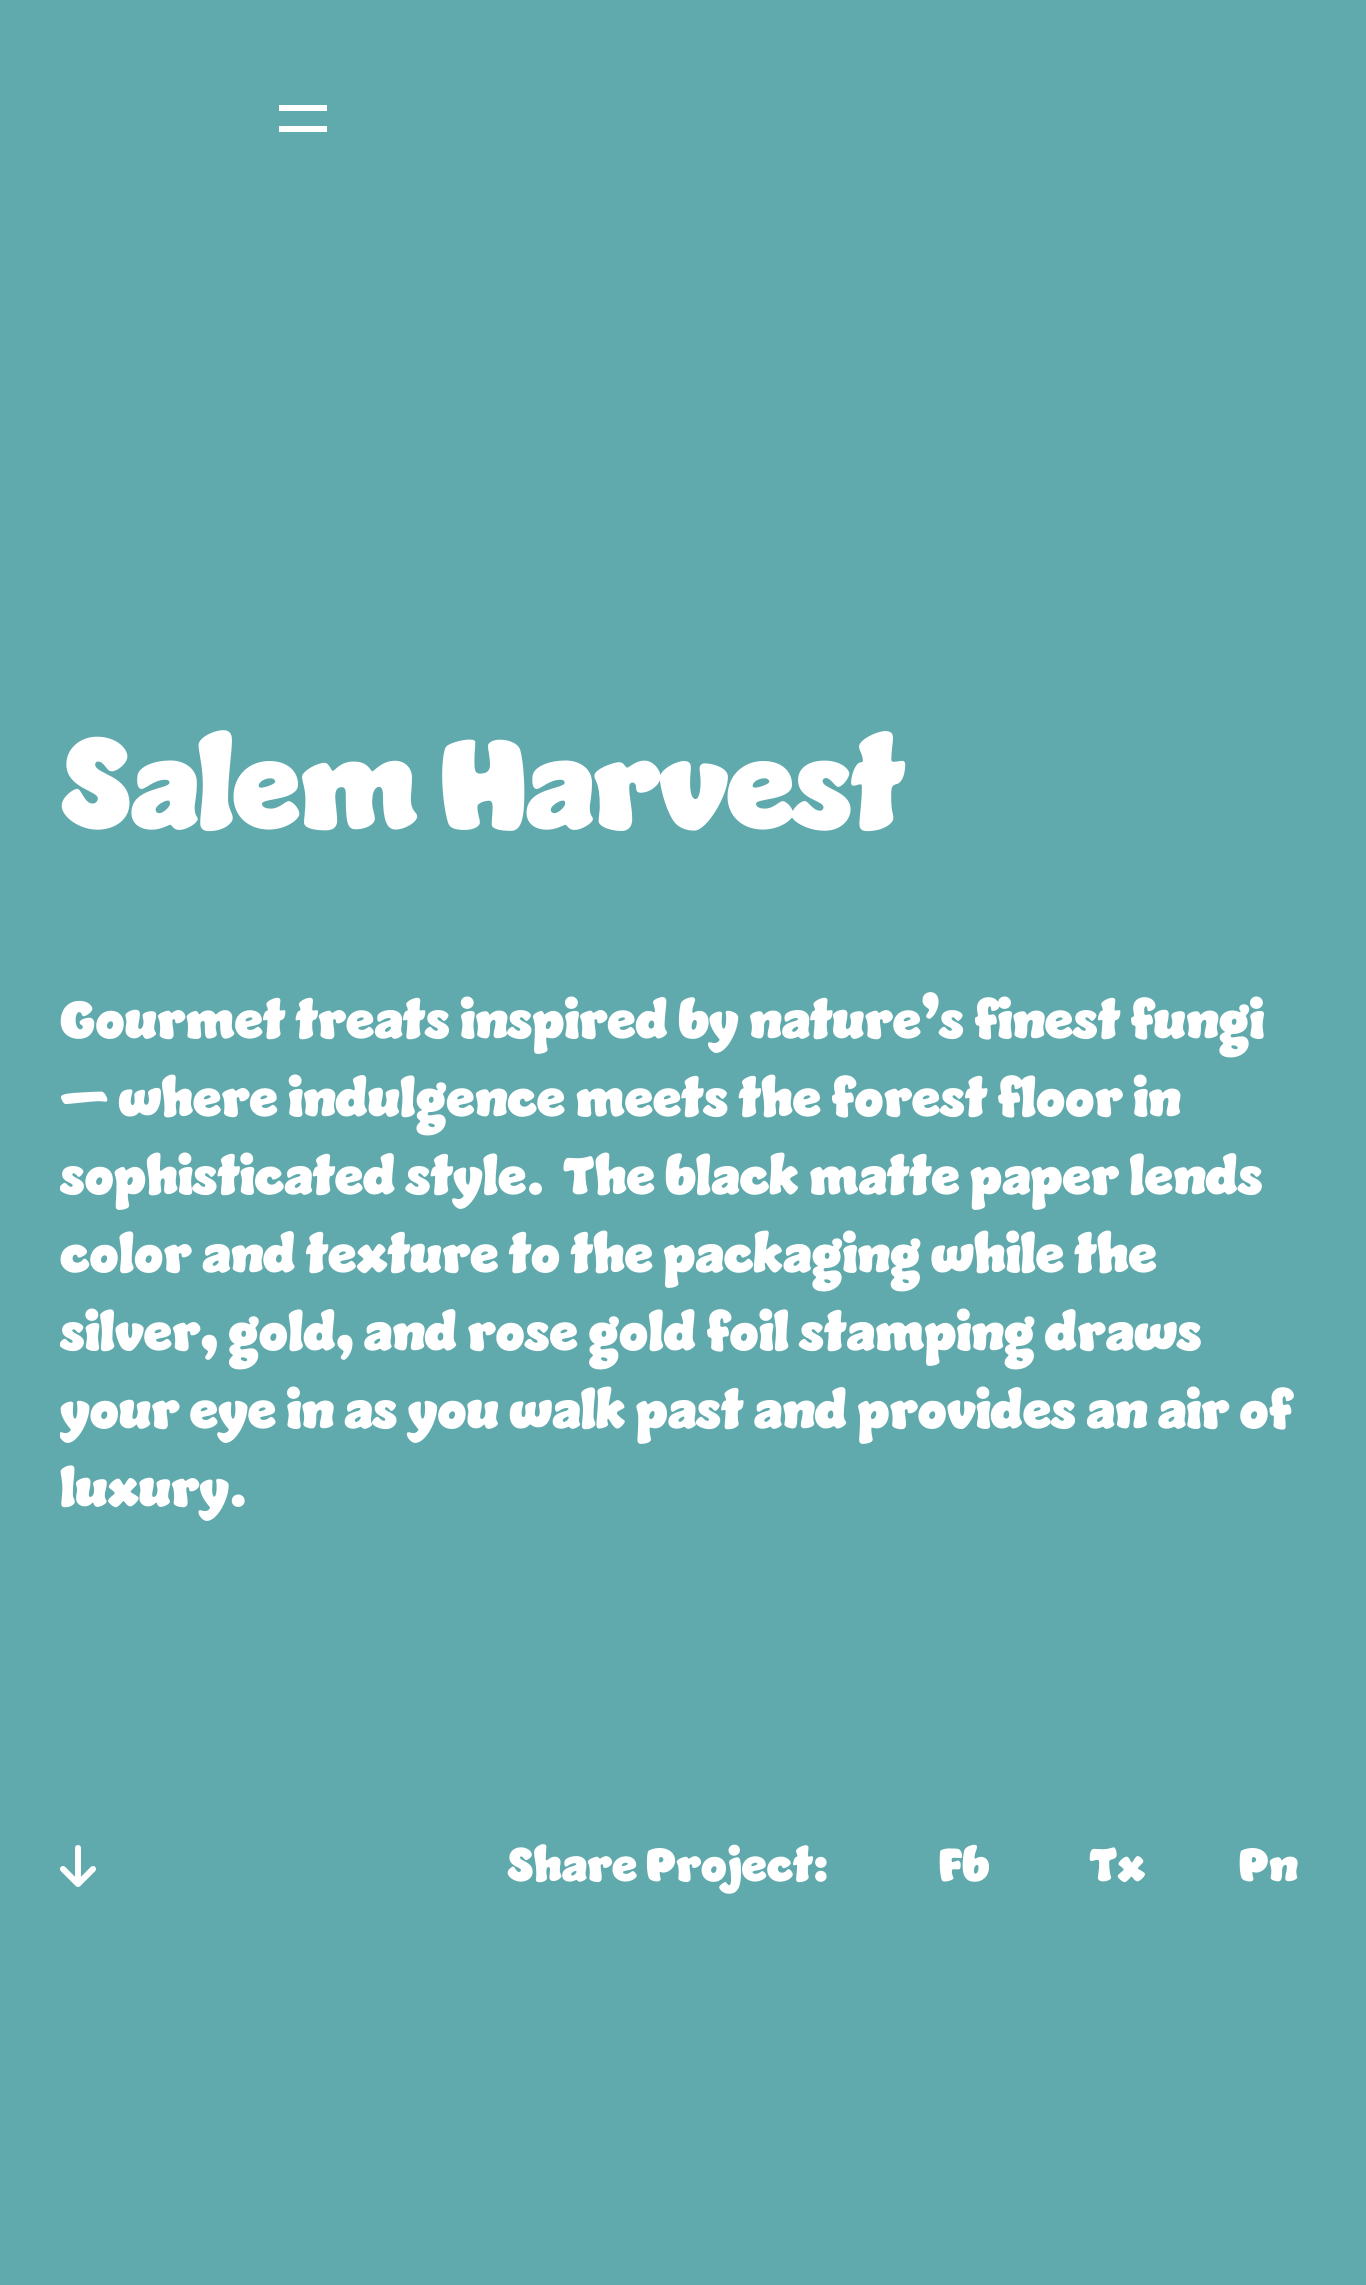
#include <cairo.h>
#include <math.h>
#include <stddef.h>


static void set_color(cairo_t *cr, unsigned color) {
    cairo_set_source_rgb(cr, (color >> 16) / 255.0, (color >> 8 & 255) / 255.0, (color & 255) / 255.0);
}

static void fill_rect(cairo_t *cr, double x, double y, double w, double h, unsigned color) {
    set_color(cr, color);
    cairo_rectangle(cr, x, y, w, h);
    cairo_fill(cr);
}

static void draw_image(cairo_t *cr, const char *path, double x, double y, double w, double h) {
    cairo_surface_t *image = cairo_image_surface_create_from_png(path);
    cairo_save(cr);
    cairo_set_source_surface(cr, image, x, y);
    cairo_rectangle(cr, x, y, w, h);
    cairo_fill(cr);
    cairo_restore(cr);
    cairo_surface_destroy(image);
}

int main(void) {
    cairo_surface_t *surface = cairo_image_surface_create(CAIRO_FORMAT_RGB24, 1366, 2285);
    cairo_t *cr = cairo_create(surface);
    cairo_font_options_t *options = cairo_font_options_create();
    cairo_font_options_set_hint_metrics(options, CAIRO_HINT_METRICS_OFF);
    cairo_font_options_set_hint_style(options, CAIRO_HINT_STYLE_NONE);
    cairo_set_font_options(cr, options);
    cairo_set_miter_limit(cr, 4);
    set_color(cr, 0x60AAAD);
    cairo_paint(cr);
    fill_rect(cr, 279, 105, 48, 6, 0xFFFFFF);
    fill_rect(cr, 279, 126, 48, 6, 0xFFFFFF);
    draw_image(cr, "assets/img1.png", 61, 730, 845, 102);
    draw_image(cr, "assets/img2.png", 60, 992, 1204, 66);
    draw_image(cr, "assets/img3.png", 60, 1074, 1121, 62);
    draw_image(cr, "assets/img4.png", 60, 1152, 1202, 58);
    draw_image(cr, "assets/img5.png", 60, 1230, 1097, 62);
    draw_image(cr, "assets/img6.png", 60, 1308, 1141, 62);
    draw_image(cr, "assets/img7.png", 60, 1386, 1234, 58);
    draw_image(cr, "assets/img8.png", 60, 1465, 185, 56);
    draw_image(cr, "assets/img9.png", 60, 1845, 36, 42);
    draw_image(cr, "assets/img10.png", 507, 1844, 320, 50);
    draw_image(cr, "assets/img11.png", 939, 1844, 51, 38);
    draw_image(cr, "assets/img12.png", 1089, 1847, 56, 36);
    draw_image(cr, "assets/img13.png", 1239, 1848, 59, 34);
    cairo_surface_write_to_png(surface, "output.png");
    cairo_font_options_destroy(options);
    cairo_destroy(cr);
    cairo_surface_destroy(surface);
    return 0;
}
